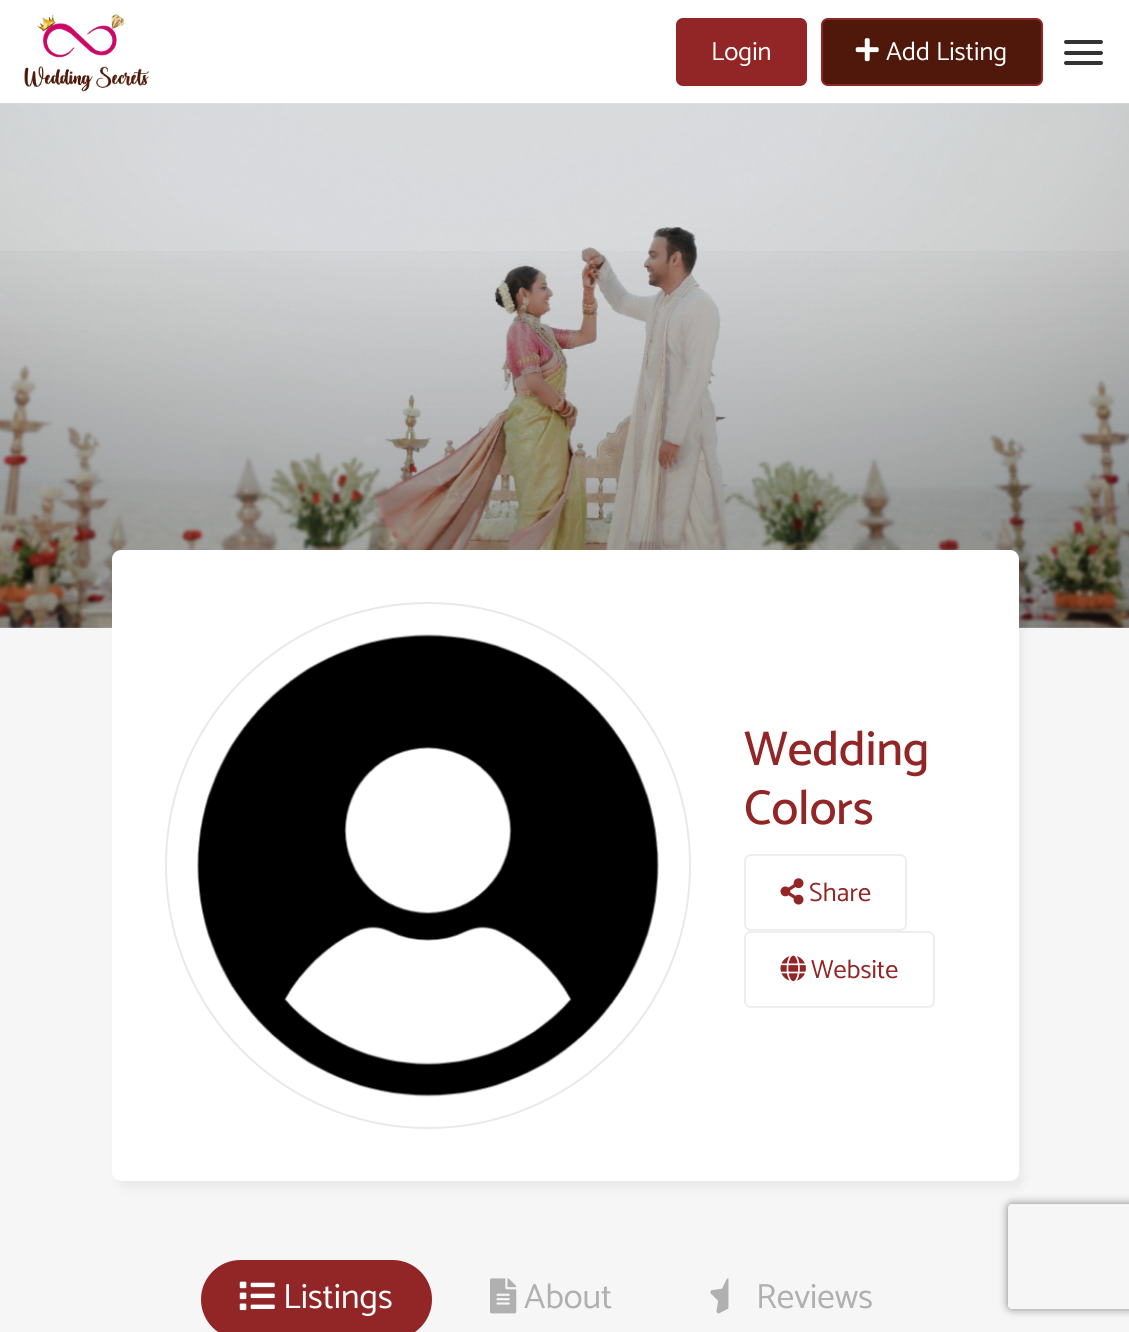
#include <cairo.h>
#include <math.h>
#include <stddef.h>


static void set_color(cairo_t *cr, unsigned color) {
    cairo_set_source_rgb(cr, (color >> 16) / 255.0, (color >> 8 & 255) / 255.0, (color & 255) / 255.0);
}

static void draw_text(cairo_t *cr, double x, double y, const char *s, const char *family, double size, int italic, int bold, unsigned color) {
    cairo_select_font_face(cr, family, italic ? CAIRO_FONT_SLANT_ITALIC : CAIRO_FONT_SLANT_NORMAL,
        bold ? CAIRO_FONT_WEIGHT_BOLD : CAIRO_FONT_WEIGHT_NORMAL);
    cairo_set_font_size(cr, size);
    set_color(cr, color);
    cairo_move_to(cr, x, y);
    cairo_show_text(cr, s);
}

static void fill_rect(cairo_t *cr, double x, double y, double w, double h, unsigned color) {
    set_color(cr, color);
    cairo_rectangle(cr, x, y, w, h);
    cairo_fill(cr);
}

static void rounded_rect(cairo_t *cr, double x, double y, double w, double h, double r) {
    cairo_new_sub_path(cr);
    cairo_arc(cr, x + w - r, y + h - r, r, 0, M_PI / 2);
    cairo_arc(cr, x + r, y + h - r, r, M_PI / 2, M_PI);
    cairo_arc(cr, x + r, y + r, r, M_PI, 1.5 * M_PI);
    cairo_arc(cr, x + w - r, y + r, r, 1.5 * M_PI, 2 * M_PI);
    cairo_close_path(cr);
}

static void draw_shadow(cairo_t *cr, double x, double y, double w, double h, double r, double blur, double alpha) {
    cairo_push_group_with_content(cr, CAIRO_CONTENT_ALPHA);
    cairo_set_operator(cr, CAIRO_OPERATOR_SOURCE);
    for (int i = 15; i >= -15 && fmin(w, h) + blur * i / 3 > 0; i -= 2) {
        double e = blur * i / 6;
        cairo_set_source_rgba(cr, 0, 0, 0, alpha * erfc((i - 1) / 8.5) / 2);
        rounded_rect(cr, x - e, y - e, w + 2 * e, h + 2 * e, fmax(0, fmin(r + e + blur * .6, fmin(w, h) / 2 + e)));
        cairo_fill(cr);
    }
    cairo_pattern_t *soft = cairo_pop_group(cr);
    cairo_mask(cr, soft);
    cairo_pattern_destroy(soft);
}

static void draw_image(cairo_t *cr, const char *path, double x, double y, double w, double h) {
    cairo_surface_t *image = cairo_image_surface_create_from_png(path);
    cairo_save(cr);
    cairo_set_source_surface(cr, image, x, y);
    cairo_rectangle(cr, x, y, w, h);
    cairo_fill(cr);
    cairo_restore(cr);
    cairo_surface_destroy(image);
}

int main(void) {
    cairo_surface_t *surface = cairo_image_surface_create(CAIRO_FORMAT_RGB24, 1129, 1332);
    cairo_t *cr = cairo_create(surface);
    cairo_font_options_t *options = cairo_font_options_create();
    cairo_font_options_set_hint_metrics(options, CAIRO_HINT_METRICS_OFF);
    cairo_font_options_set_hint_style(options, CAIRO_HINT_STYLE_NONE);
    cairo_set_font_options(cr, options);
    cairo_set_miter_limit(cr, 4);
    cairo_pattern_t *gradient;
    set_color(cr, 0xFFFFFF);
    cairo_paint(cr);
    cairo_save(cr);
    cairo_rectangle(cr, 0, 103, 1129, 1);
    cairo_clip(cr);
    set_color(cr, 0x000000);
    draw_shadow(cr, 0, 0, 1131, 103, 0, 2.5, 0.15);
    cairo_restore(cr);
    draw_image(cr, "assets/img1.png", 24, 14, 125, 78);
    set_color(cr, 0x922525);
    rounded_rect(cr, 677, 19, 129, 66, 6);
    cairo_fill_preserve(cr);
    cairo_stroke(cr);
    draw_text(cr, 711, 60, "Login", "Catamaran", 26.25, 0, 0, 0xFFFFFF);
    set_color(cr, 0x4F180B);
    rounded_rect(cr, 822, 19, 220, 66, 6);
    cairo_fill_preserve(cr);
    set_color(cr, 0x922525);
    cairo_stroke(cr);
    draw_image(cr, "assets/img2.png", 855, 38, 24, 24);
    draw_text(cr, 886, 60, "Add Listing", "Catamaran", 26.25, 0, 0, 0xFFFFFF);
    set_color(cr, 0x333333);
    rounded_rect(cr, 1064, 40, 39, 4, 2);
    cairo_fill(cr);
    rounded_rect(cr, 1064, 51, 39, 4, 2);
    cairo_fill(cr);
    rounded_rect(cr, 1064, 61, 39, 4, 2);
    cairo_fill(cr);
    draw_image(cr, "assets/img3.png", 0, 103, 1129, 525);
    gradient = cairo_pattern_create_linear(565, 103, 565, 628);
    cairo_pattern_add_color_stop_rgba(gradient, 0, 0, 0, 0, 0);
    cairo_pattern_add_color_stop_rgba(gradient, 0.2, 0, 0, 0, 0);
    cairo_pattern_add_color_stop_rgba(gradient, 1, 0, 0, 0, 0.21);
    cairo_set_source(cr, gradient);
    cairo_pattern_destroy(gradient);
    cairo_rectangle(cr, 0, 251, 1129, 377);
    cairo_fill(cr);
    fill_rect(cr, 0, 628, 1129, 704, 0xF6F6F7);
    set_color(cr, 0x000000);
    draw_shadow(cr, 117, 557, 907, 631, 9, 4.5, 0.05);
    set_color(cr, 0xFFFFFF);
    rounded_rect(cr, 112, 550, 907, 631, 9);
    cairo_fill(cr);
    rounded_rect(cr, 166, 603, 524, 525, 262);
    set_color(cr, 0xE9E9E9);
    cairo_stroke(cr);
    draw_image(cr, "assets/img4.png", 197, 634, 462, 463);
    draw_text(cr, 744, 765, "Wedding", "Catamaran Medium", 49, 0, 0, 0x922525);
    draw_text(cr, 744, 824, "Colors", "Catamaran Medium", 49, 0, 0, 0x922525);
    rounded_rect(cr, 745, 855, 161, 75, 6);
    set_color(cr, 0xEEEEEE);
    cairo_stroke(cr);
    draw_image(cr, "assets/img5.png", 780, 878, 24, 27);
    draw_text(cr, 809, 901, "Share", "Catamaran", 26.25, 0, 0, 0x922525);
    rounded_rect(cr, 745, 932, 189, 75, 6);
    set_color(cr, 0xEEEEEE);
    cairo_stroke(cr);
    draw_image(cr, "assets/img6.png", 780, 955, 26, 27);
    draw_text(cr, 811, 978, "Website", "Catamaran", 26.25, 0, 0, 0x922525);
    rounded_rect(cr, 201, 1260, 231, 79, 39.5);
    cairo_fill(cr);
    draw_image(cr, "assets/img7.png", 239, 1281, 36, 30);
    draw_text(cr, 283, 1308, "Listings", "Catamaran", 35, 0, 0, 0xFFFFFF);
    draw_image(cr, "assets/img8.png", 490, 1278, 27, 36);
    draw_text(cr, 524, 1308, "About", "Catamaran", 35, 0, 0, 0xB0B0B0);
    draw_image(cr, "assets/img9.png", 710, 1278, 19, 36);
    draw_text(cr, 756, 1308, "Reviews", "Catamaran", 35, 0, 0, 0xB0B0B0);
    cairo_save(cr);
    cairo_set_fill_rule(cr, CAIRO_FILL_RULE_EVEN_ODD);
    cairo_new_path(cr);
    cairo_move_to(cr, 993, 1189);
    cairo_line_to(cr, 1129, 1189);
    cairo_line_to(cr, 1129, 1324);
    cairo_line_to(cr, 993, 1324);
    cairo_close_path(cr);
    cairo_move_to(cr, 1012, 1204);
    cairo_line_to(cr, 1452, 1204);
    cairo_curve_to(cr, 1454, 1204, 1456, 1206, 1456, 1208);
    cairo_line_to(cr, 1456, 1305);
    cairo_curve_to(cr, 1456, 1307, 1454, 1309, 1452, 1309);
    cairo_line_to(cr, 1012, 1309);
    cairo_curve_to(cr, 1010, 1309, 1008, 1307, 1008, 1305);
    cairo_line_to(cr, 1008, 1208);
    cairo_curve_to(cr, 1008, 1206, 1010, 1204, 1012, 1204);
    cairo_close_path(cr);
    cairo_clip(cr);
    set_color(cr, 0x808080);
    draw_shadow(cr, 1008, 1204, 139, 105, 4, 4.5, 1);
    cairo_restore(cr);
    cairo_surface_write_to_png(surface, "output.png");
    cairo_font_options_destroy(options);
    cairo_destroy(cr);
    cairo_surface_destroy(surface);
    return 0;
}
